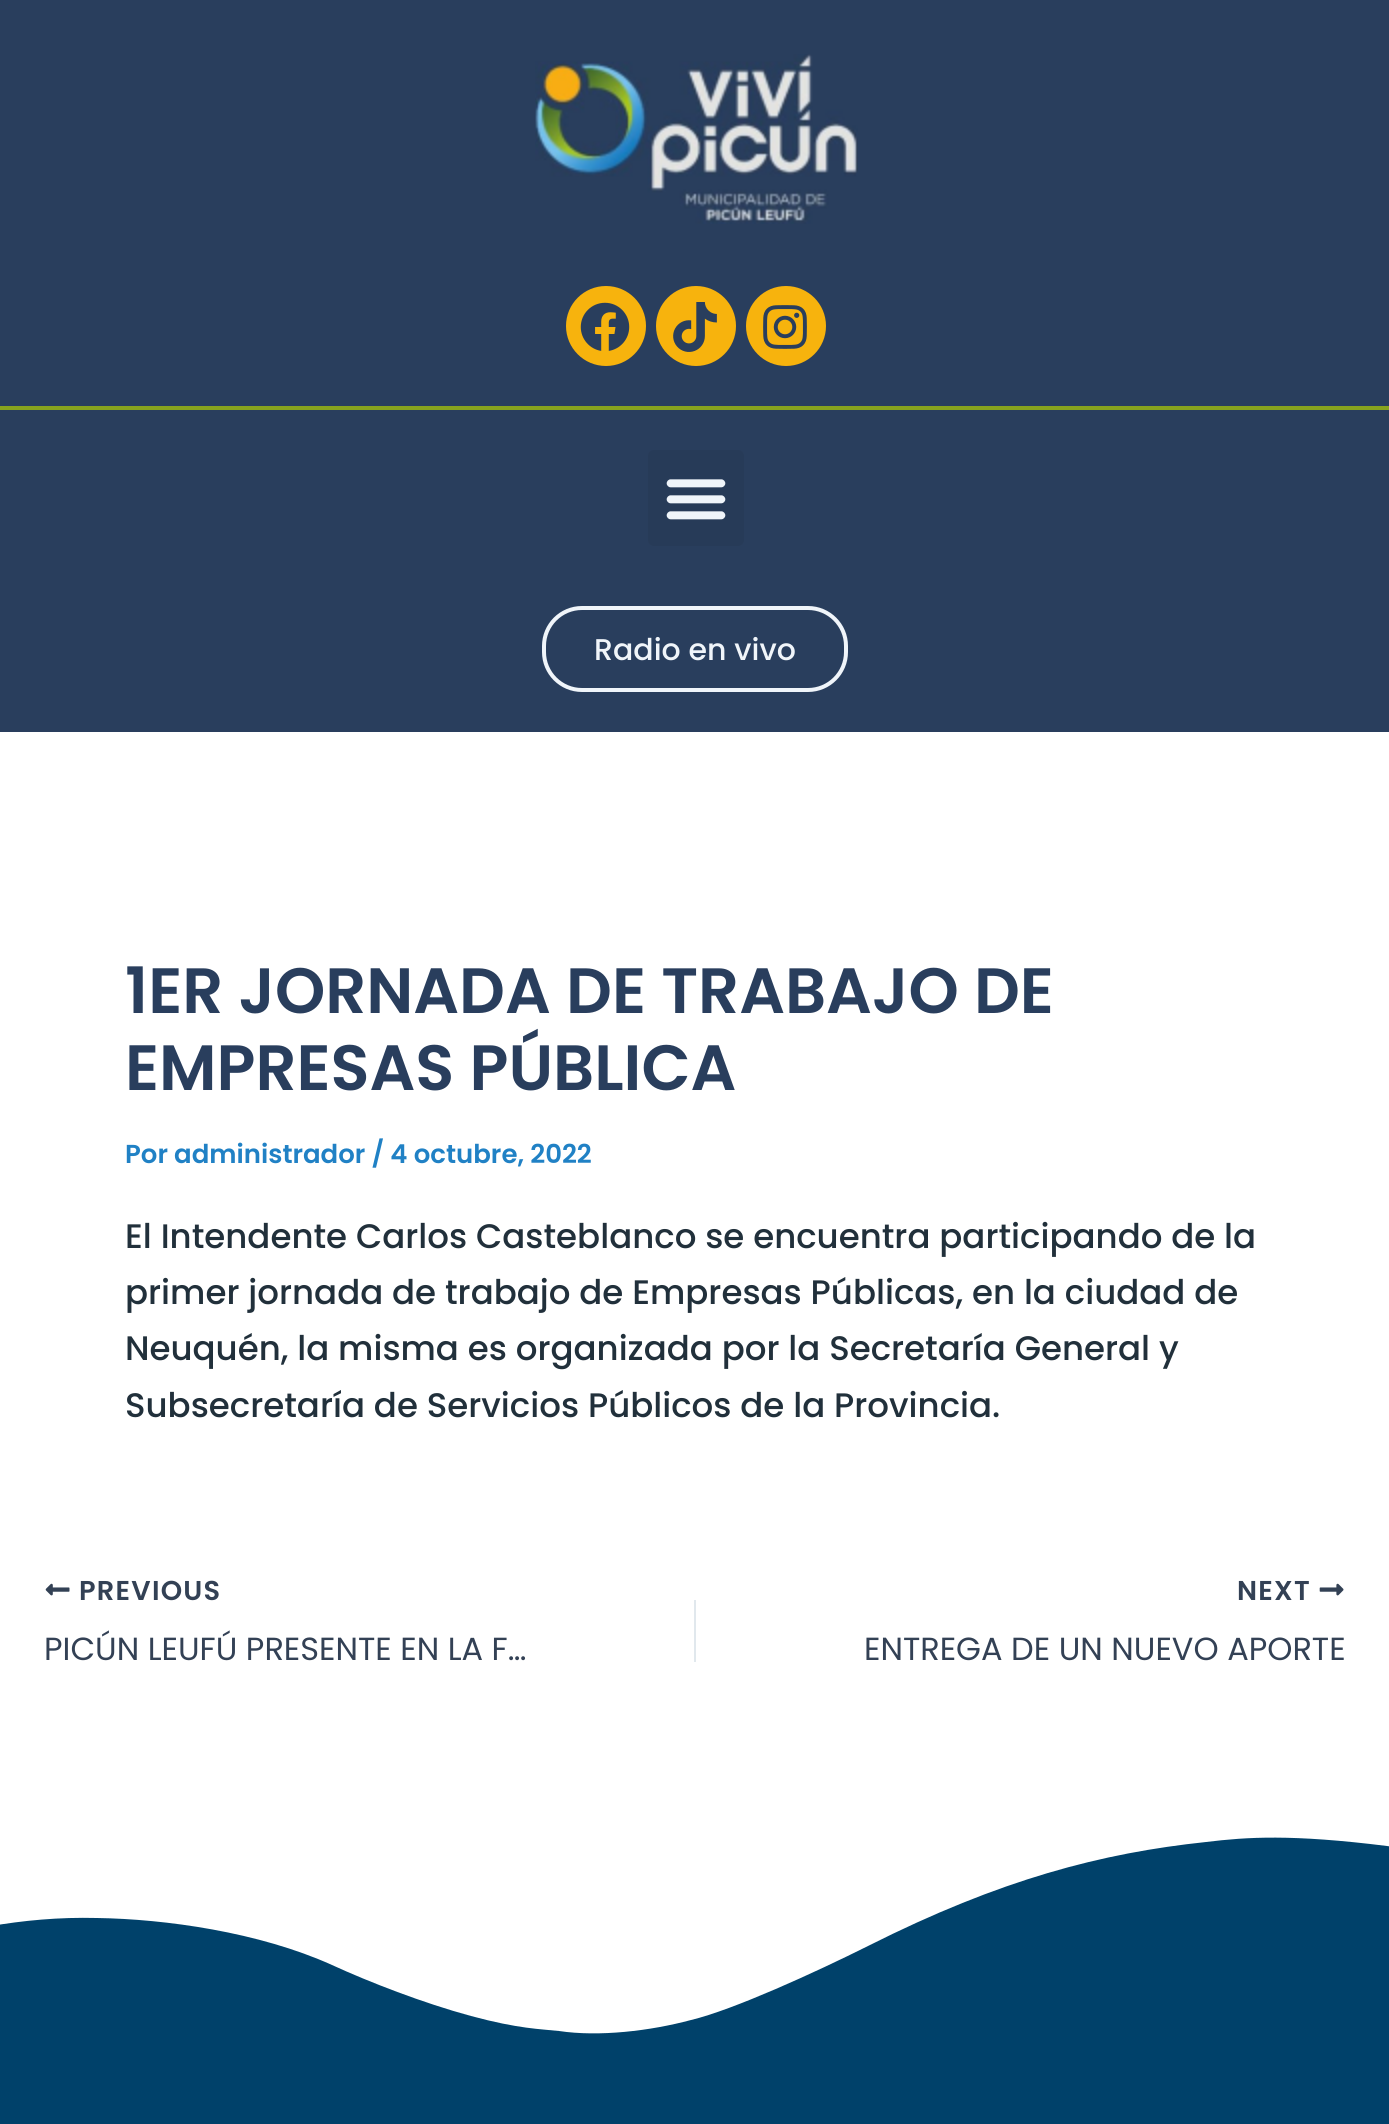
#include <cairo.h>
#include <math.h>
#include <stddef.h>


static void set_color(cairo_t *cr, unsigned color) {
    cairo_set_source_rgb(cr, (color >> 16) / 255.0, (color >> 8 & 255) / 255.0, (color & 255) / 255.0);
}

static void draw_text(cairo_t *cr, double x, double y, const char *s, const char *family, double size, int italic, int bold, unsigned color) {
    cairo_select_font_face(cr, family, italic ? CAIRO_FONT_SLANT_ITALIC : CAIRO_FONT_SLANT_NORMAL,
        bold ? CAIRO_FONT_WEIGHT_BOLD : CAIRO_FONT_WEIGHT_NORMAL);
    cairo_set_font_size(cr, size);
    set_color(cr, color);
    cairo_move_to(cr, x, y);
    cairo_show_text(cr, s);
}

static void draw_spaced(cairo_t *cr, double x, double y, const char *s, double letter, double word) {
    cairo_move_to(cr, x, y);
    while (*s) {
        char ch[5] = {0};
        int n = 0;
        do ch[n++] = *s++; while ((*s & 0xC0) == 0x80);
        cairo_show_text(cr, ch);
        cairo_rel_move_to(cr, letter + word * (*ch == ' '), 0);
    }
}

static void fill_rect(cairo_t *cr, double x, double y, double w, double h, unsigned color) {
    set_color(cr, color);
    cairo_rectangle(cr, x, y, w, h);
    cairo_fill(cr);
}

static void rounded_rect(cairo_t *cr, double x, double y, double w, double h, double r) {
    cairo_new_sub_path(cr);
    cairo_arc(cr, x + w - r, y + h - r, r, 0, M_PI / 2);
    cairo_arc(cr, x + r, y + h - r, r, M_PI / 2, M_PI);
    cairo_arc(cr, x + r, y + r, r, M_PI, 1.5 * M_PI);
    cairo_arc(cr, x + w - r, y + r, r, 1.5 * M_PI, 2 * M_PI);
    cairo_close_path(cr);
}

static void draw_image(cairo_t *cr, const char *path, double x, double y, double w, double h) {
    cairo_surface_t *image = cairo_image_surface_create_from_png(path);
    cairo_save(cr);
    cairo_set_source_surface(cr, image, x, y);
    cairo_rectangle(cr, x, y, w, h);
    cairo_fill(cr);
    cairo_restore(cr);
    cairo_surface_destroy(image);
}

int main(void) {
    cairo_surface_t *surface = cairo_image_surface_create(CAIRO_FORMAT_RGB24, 1389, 2124);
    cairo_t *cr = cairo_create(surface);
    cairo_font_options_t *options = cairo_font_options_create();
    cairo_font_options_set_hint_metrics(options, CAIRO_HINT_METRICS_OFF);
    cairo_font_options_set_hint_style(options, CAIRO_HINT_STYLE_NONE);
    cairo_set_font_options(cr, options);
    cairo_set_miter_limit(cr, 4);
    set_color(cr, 0xFFFFFF);
    cairo_paint(cr);
    fill_rect(cr, 0, 0, 1389, 406, 0x293E5D);
    draw_image(cr, "assets/img1.png", 535, 54, 323, 170);
    set_color(cr, 0xF7B30D);
    cairo_arc(cr, 606, 326, 40, 0, 2 * M_PI);
    cairo_fill(cr);
    draw_image(cr, "assets/img2.png", 580, 302, 50, 49);
    cairo_arc(cr, 696, 326, 40, 0, 2 * M_PI);
    cairo_fill(cr);
    draw_image(cr, "assets/img3.png", 673, 302, 44, 50);
    cairo_arc(cr, 786, 326, 40, 0, 2 * M_PI);
    cairo_fill(cr);
    draw_image(cr, "assets/img4.png", 763, 305, 44, 44);
    fill_rect(cr, 0, 410, 1389, 322, 0x293E5D);
    fill_rect(cr, 0, 406, 1389, 4, 0x87A31E);
    set_color(cr, 0x273B58);
    rounded_rect(cr, 648, 450, 96, 96, 6);
    cairo_fill(cr);
    draw_image(cr, "assets/img5.png", 666, 479, 60, 41);
    rounded_rect(cr, 544, 608, 302, 82, 38);
    set_color(cr, 0xF0F5FA);
    cairo_set_line_width(cr, 4);
    cairo_stroke(cr);
    draw_text(cr, 594, 660, "Radio en vivo", "Poppins Medium", 30, 0, 0, 0xF0F5FA);
    draw_text(cr, 125, 1013, "1ER JORNADA DE TRABAJO DE", "Poppins SemiBold", 64, 0, 0, 0x293E5D);
    draw_text(cr, 125, 1090, "EMPRESAS PÚBLICA", "Poppins SemiBold", 64, 0, 0, 0x293E5D);
    draw_text(cr, 125, 1163, "Por administrador / 4 octubre, 2022", "Poppins SemiBold", 26, 0, 0, 0x2081C5);
    draw_text(cr, 125, 1248, "El Intendente Carlos Casteblanco se encuentra participando de la", "Poppins Medium", 34, 0, 0, 0x21303B);
    draw_text(cr, 125, 1304, "primer jornada de trabajo de Empresas Públicas, en la ciudad de", "Poppins Medium", 34, 0, 0, 0x21303B);
    draw_text(cr, 125, 1360, "Neuquén, la misma es organizada por la Secretaría General y", "Poppins Medium", 34, 0, 0, 0x21303B);
    draw_text(cr, 125, 1417, "Subsecretaría de Servicios Públicos de la Provincia.", "Poppins Medium", 34, 0, 0, 0x21303B);
    draw_image(cr, "assets/img6.png", 45, 1583, 25, 13);
    cairo_select_font_face(cr, "Poppins SemiBold", CAIRO_FONT_SLANT_NORMAL, CAIRO_FONT_WEIGHT_NORMAL);
    cairo_set_font_size(cr, 27.25);
    set_color(cr, 0x334155);
    draw_spaced(cr, 79, 1600, "PREVIOUS", 1.25, 0);
    draw_text(cr, 44, 1660, "PICÚN LEUFÚ PRESENTE EN LA F…", "Poppins", 32, 0, 0, 0x334155);
    fill_rect(cr, 694, 1600, 2, 62, 0xE1E8ED);
    cairo_select_font_face(cr, "Poppins SemiBold", CAIRO_FONT_SLANT_NORMAL, CAIRO_FONT_WEIGHT_NORMAL);
    cairo_set_font_size(cr, 27.25);
    set_color(cr, 0x334155);
    draw_spaced(cr, 1237, 1600, "NEXT", 1.25, 0);
    draw_image(cr, "assets/img7.png", 1319, 1583, 25, 13);
    draw_text(cr, 864, 1660, "ENTREGA DE UN NUEVO APORTE", "Poppins", 32, 0, 0, 0x334155);
    fill_rect(cr, 0, 1837, 1389, 287, 0x00416A);
    set_color(cr, 0xFFFFFF);
    cairo_new_path(cr);
    cairo_move_to(cr, 1206, 1842);
    cairo_curve_to(cr, 1102, 1853, 1001, 1879, 868, 1946);
    cairo_curve_to(cr, 816, 1972, 733, 2010, 691, 2020);
    cairo_curve_to(cr, 650, 2031, 599, 2037, 559, 2031);
    cairo_curve_to(cr, 541, 2029, 519, 2029, 471, 2016);
    cairo_curve_to(cr, 423, 2003, 369, 1982, 332, 1965);
    cairo_curve_to(cr, 259, 1932, 165, 1919, 97, 1918);
    cairo_curve_to(cr, -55, 1914, -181, 1982, -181, 1982);
    cairo_line_to(cr, -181, 1827);
    cairo_line_to(cr, 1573, 1827);
    cairo_line_to(cr, 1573, 1900);
    cairo_curve_to(cr, 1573, 1900, 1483, 1859, 1387, 1846);
    cairo_curve_to(cr, 1291, 1834, 1247, 1837, 1206, 1842);
    cairo_close_path(cr);
    cairo_fill(cr);
    cairo_surface_write_to_png(surface, "output.png");
    cairo_font_options_destroy(options);
    cairo_destroy(cr);
    cairo_surface_destroy(surface);
    return 0;
}
